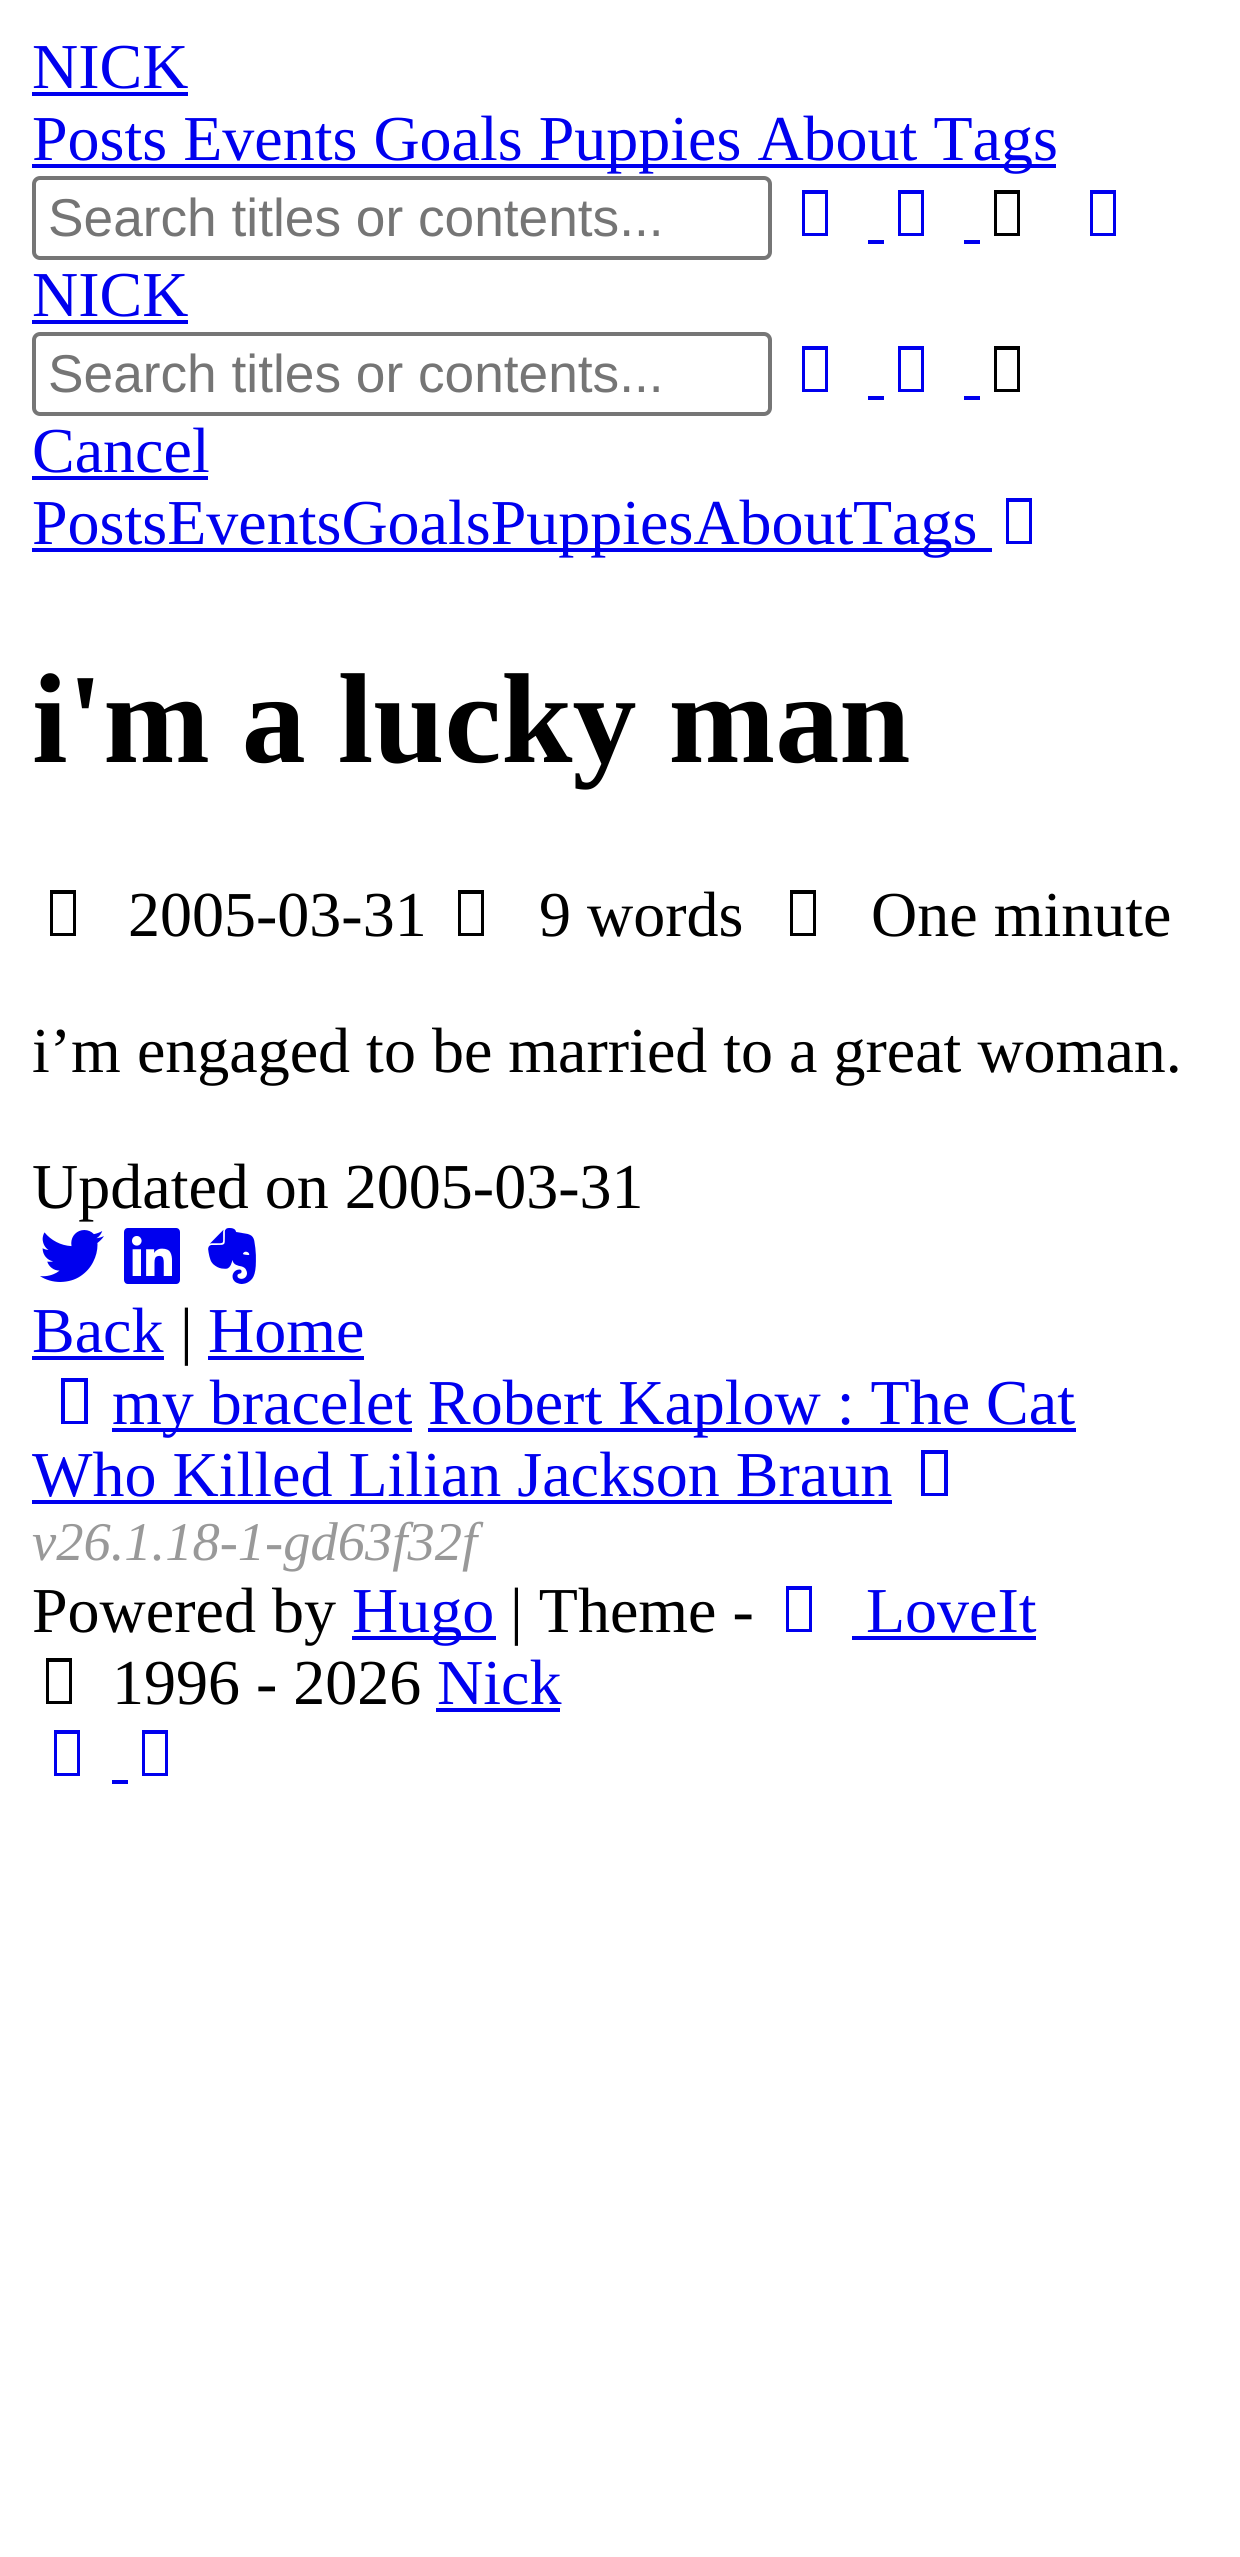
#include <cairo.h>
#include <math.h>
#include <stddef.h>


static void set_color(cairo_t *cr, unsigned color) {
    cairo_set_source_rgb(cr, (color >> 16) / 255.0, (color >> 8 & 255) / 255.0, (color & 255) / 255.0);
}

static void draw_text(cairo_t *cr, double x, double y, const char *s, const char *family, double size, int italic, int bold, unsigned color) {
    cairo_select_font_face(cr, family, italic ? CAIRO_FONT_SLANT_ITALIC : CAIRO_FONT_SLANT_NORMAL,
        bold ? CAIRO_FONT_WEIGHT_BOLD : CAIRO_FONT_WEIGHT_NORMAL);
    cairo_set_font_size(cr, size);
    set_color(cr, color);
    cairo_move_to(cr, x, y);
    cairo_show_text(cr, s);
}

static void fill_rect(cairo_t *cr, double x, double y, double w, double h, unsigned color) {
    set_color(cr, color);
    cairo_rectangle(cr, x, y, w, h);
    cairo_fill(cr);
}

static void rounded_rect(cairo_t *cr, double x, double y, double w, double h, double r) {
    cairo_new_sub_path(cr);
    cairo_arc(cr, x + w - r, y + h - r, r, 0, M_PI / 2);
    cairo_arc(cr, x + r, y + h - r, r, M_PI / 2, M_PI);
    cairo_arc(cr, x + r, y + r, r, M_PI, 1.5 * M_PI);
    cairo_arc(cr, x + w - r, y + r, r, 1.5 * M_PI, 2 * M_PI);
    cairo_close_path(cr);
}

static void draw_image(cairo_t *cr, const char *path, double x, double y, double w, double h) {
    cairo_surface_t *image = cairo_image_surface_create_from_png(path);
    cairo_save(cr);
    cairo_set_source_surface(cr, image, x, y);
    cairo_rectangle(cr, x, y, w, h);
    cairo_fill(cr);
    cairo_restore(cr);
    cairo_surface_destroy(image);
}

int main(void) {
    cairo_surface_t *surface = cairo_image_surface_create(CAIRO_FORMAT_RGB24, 1240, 2557);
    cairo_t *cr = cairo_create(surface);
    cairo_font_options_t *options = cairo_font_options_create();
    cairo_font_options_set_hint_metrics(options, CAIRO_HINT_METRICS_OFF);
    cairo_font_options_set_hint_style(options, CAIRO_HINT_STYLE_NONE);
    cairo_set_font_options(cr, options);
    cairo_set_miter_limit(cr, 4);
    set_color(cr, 0xFFFFFF);
    cairo_paint(cr);
    draw_text(cr, 32, 88, "NICK", "Liberation Serif", 64, 0, 0, 0x0000EE);
    fill_rect(cr, 32, 92, 156, 4, 0x0000EE);
    fill_rect(cr, 32, 164, 1024, 4, 0x0000EE);
    draw_text(cr, 32, 160, "Posts Events Goals Puppies About Tags", "Liberation Serif", 64, 0, 0, 0x0000EE);
    rounded_rect(cr, 34, 178, 736, 80, 6);
    set_color(cr, 0x767676);
    cairo_set_line_width(cr, 4);
    cairo_stroke(cr);
    draw_text(cr, 48, 236, "Search titles or contents...", "Liberation Sans", 53.25, 0, 0, 0x757575);
    set_color(cr, 0x0000EE);
    cairo_new_path(cr);
    cairo_move_to(cr, 802, 236);
    cairo_line_to(cr, 802, 190);
    cairo_line_to(cr, 828, 190);
    cairo_line_to(cr, 828, 236);
    cairo_close_path(cr);
    cairo_move_to(cr, 805, 233);
    cairo_line_to(cr, 825, 233);
    cairo_line_to(cr, 825, 194);
    cairo_line_to(cr, 805, 194);
    cairo_close_path(cr);
    cairo_fill(cr);
    fill_rect(cr, 868, 240, 16, 4, 0x0000EE);
    cairo_new_path(cr);
    cairo_move_to(cr, 898, 236);
    cairo_line_to(cr, 898, 190);
    cairo_line_to(cr, 924, 190);
    cairo_line_to(cr, 924, 236);
    cairo_close_path(cr);
    cairo_move_to(cr, 901, 233);
    cairo_line_to(cr, 921, 233);
    cairo_line_to(cr, 921, 194);
    cairo_line_to(cr, 901, 194);
    cairo_close_path(cr);
    cairo_fill(cr);
    fill_rect(cr, 964, 240, 16, 4, 0x0000EE);
    set_color(cr, 0x000000);
    cairo_new_path(cr);
    cairo_move_to(cr, 994, 236);
    cairo_line_to(cr, 994, 190);
    cairo_line_to(cr, 1020, 190);
    cairo_line_to(cr, 1020, 236);
    cairo_close_path(cr);
    cairo_move_to(cr, 997, 233);
    cairo_line_to(cr, 1017, 233);
    cairo_line_to(cr, 1017, 194);
    cairo_line_to(cr, 997, 194);
    cairo_close_path(cr);
    cairo_fill(cr);
    set_color(cr, 0x0000EE);
    cairo_new_path(cr);
    cairo_move_to(cr, 1090, 236);
    cairo_line_to(cr, 1090, 190);
    cairo_line_to(cr, 1116, 190);
    cairo_line_to(cr, 1116, 236);
    cairo_close_path(cr);
    cairo_move_to(cr, 1093, 233);
    cairo_line_to(cr, 1113, 233);
    cairo_line_to(cr, 1113, 194);
    cairo_line_to(cr, 1093, 194);
    cairo_close_path(cr);
    cairo_fill(cr);
    draw_text(cr, 32, 316, "NICK", "Liberation Serif", 64, 0, 0, 0x0000EE);
    fill_rect(cr, 32, 320, 156, 4, 0x0000EE);
    rounded_rect(cr, 34, 334, 736, 80, 6);
    set_color(cr, 0x767676);
    cairo_stroke(cr);
    draw_text(cr, 48, 392, "Search titles or contents...", "Liberation Sans", 53.25, 0, 0, 0x757575);
    set_color(cr, 0x0000EE);
    cairo_new_path(cr);
    cairo_move_to(cr, 802, 392);
    cairo_line_to(cr, 802, 346);
    cairo_line_to(cr, 828, 346);
    cairo_line_to(cr, 828, 392);
    cairo_close_path(cr);
    cairo_move_to(cr, 805, 389);
    cairo_line_to(cr, 825, 389);
    cairo_line_to(cr, 825, 350);
    cairo_line_to(cr, 805, 350);
    cairo_close_path(cr);
    cairo_fill(cr);
    fill_rect(cr, 868, 396, 16, 4, 0x0000EE);
    cairo_new_path(cr);
    cairo_move_to(cr, 898, 392);
    cairo_line_to(cr, 898, 346);
    cairo_line_to(cr, 924, 346);
    cairo_line_to(cr, 924, 392);
    cairo_close_path(cr);
    cairo_move_to(cr, 901, 389);
    cairo_line_to(cr, 921, 389);
    cairo_line_to(cr, 921, 350);
    cairo_line_to(cr, 901, 350);
    cairo_close_path(cr);
    cairo_fill(cr);
    fill_rect(cr, 964, 396, 16, 4, 0x0000EE);
    set_color(cr, 0x000000);
    cairo_new_path(cr);
    cairo_move_to(cr, 994, 392);
    cairo_line_to(cr, 994, 346);
    cairo_line_to(cr, 1020, 346);
    cairo_line_to(cr, 1020, 392);
    cairo_close_path(cr);
    cairo_move_to(cr, 997, 389);
    cairo_line_to(cr, 1017, 389);
    cairo_line_to(cr, 1017, 350);
    cairo_line_to(cr, 997, 350);
    cairo_close_path(cr);
    cairo_fill(cr);
    draw_text(cr, 32, 472, "Cancel", "Liberation Serif", 64, 0, 0, 0x0000EE);
    fill_rect(cr, 32, 476, 176, 4, 0x0000EE);
    fill_rect(cr, 32, 548, 820, 4, 0x0000EE);
    draw_text(cr, 32, 544, "PostsEventsGoalsPuppiesAbout", "Liberation Serif", 64, 0, 0, 0x0000EE);
    fill_rect(cr, 852, 548, 140, 4, 0x0000EE);
    draw_text(cr, 853, 544, "Tags", "Liberation Serif", 64, 0, 0, 0x0000EE);
    cairo_new_path(cr);
    cairo_move_to(cr, 1006, 544);
    cairo_line_to(cr, 1006, 498);
    cairo_line_to(cr, 1032, 498);
    cairo_line_to(cr, 1032, 544);
    cairo_close_path(cr);
    cairo_move_to(cr, 1009, 541);
    cairo_line_to(cr, 1029, 541);
    cairo_line_to(cr, 1029, 502);
    cairo_line_to(cr, 1009, 502);
    cairo_close_path(cr);
    cairo_fill(cr);
    draw_text(cr, 32, 762, "i'm a lucky man", "Liberation Serif", 128, 0, 1, 0x000000);
    cairo_new_path(cr);
    cairo_move_to(cr, 50, 936);
    cairo_line_to(cr, 50, 890);
    cairo_line_to(cr, 76, 890);
    cairo_line_to(cr, 76, 936);
    cairo_close_path(cr);
    cairo_move_to(cr, 53, 933);
    cairo_line_to(cr, 73, 933);
    cairo_line_to(cr, 73, 894);
    cairo_line_to(cr, 53, 894);
    cairo_close_path(cr);
    cairo_fill(cr);
    draw_text(cr, 128, 936, "2005-03-31", "Liberation Serif", 64, 0, 0, 0x000000);
    cairo_new_path(cr);
    cairo_move_to(cr, 458, 936);
    cairo_line_to(cr, 458, 890);
    cairo_line_to(cr, 484, 890);
    cairo_line_to(cr, 484, 936);
    cairo_close_path(cr);
    cairo_move_to(cr, 461, 933);
    cairo_line_to(cr, 481, 933);
    cairo_line_to(cr, 481, 894);
    cairo_line_to(cr, 461, 894);
    cairo_close_path(cr);
    cairo_fill(cr);
    draw_text(cr, 539, 936, "9 words", "Liberation Serif", 64, 0, 0, 0x000000);
    cairo_new_path(cr);
    cairo_move_to(cr, 790, 936);
    cairo_line_to(cr, 790, 890);
    cairo_line_to(cr, 816, 890);
    cairo_line_to(cr, 816, 936);
    cairo_close_path(cr);
    cairo_move_to(cr, 793, 933);
    cairo_line_to(cr, 813, 933);
    cairo_line_to(cr, 813, 894);
    cairo_line_to(cr, 793, 894);
    cairo_close_path(cr);
    cairo_fill(cr);
    draw_text(cr, 871, 936, "One minute", "Liberation Serif", 64, 0, 0, 0x000000);
    draw_text(cr, 32, 1072, "i’m engaged to be married to a great woman.", "Liberation Serif", 64, 0, 0, 0x000000);
    draw_text(cr, 32, 1208, "Updated on 2005-03-31", "Liberation Serif", 64, 0, 0, 0x000000);
    draw_image(cr, "assets/img1.png", 40, 1230, 64, 52);
    draw_image(cr, "assets/img2.png", 124, 1228, 56, 56);
    draw_image(cr, "assets/img3.png", 208, 1228, 48, 56);
    draw_text(cr, 32, 1352, "Back", "Liberation Serif", 64, 0, 0, 0x0000EE);
    fill_rect(cr, 32, 1356, 132, 4, 0x0000EE);
    draw_text(cr, 180, 1352, "|", "Liberation Serif", 64, 0, 0, 0x000000);
    draw_text(cr, 208, 1352, "Home", "Liberation Serif", 64, 0, 0, 0x0000EE);
    fill_rect(cr, 208, 1356, 156, 4, 0x0000EE);
    fill_rect(cr, 428, 1428, 648, 4, 0x0000EE);
    draw_text(cr, 428, 1424, "Robert Kaplow : The Cat", "Liberation Serif", 64, 0, 0, 0x0000EE);
    draw_text(cr, 32, 1496, "Who Killed Lilian Jackson Braun", "Liberation Serif", 64, 0, 0, 0x0000EE);
    fill_rect(cr, 32, 1500, 860, 4, 0x0000EE);
    cairo_new_path(cr);
    cairo_move_to(cr, 921, 1496);
    cairo_line_to(cr, 921, 1450);
    cairo_line_to(cr, 948, 1450);
    cairo_line_to(cr, 948, 1496);
    cairo_close_path(cr);
    cairo_move_to(cr, 925, 1493);
    cairo_line_to(cr, 944, 1493);
    cairo_line_to(cr, 944, 1454);
    cairo_line_to(cr, 925, 1454);
    cairo_close_path(cr);
    cairo_fill(cr);
    cairo_new_path(cr);
    cairo_move_to(cr, 61, 1424);
    cairo_line_to(cr, 61, 1378);
    cairo_line_to(cr, 88, 1378);
    cairo_line_to(cr, 88, 1424);
    cairo_close_path(cr);
    cairo_move_to(cr, 65, 1421);
    cairo_line_to(cr, 84, 1421);
    cairo_line_to(cr, 84, 1382);
    cairo_line_to(cr, 65, 1382);
    cairo_close_path(cr);
    cairo_fill(cr);
    fill_rect(cr, 112, 1428, 300, 4, 0x0000EE);
    draw_text(cr, 112, 1424, "my bracelet", "Liberation Serif", 64, 0, 0, 0x0000EE);
    draw_text(cr, 32, 1560, "v26.1.18-1-gd63f32f", "Liberation Serif", 54.5, 1, 0, 0x999999);
    draw_text(cr, 32, 1632, "Powered by", "Liberation Serif", 64, 0, 0, 0x000000);
    fill_rect(cr, 352, 1636, 144, 4, 0x0000EE);
    draw_text(cr, 352, 1632, "Hugo", "Liberation Serif", 64, 0, 0, 0x0000EE);
    draw_text(cr, 510, 1632, "| Theme -", "Liberation Serif", 64, 0, 0, 0x000000);
    set_color(cr, 0x0000EE);
    cairo_new_path(cr);
    cairo_move_to(cr, 786, 1632);
    cairo_line_to(cr, 786, 1586);
    cairo_line_to(cr, 812, 1586);
    cairo_line_to(cr, 812, 1632);
    cairo_close_path(cr);
    cairo_move_to(cr, 789, 1629);
    cairo_line_to(cr, 809, 1629);
    cairo_line_to(cr, 809, 1590);
    cairo_line_to(cr, 789, 1590);
    cairo_close_path(cr);
    cairo_fill(cr);
    draw_text(cr, 866, 1632, "LoveIt", "Liberation Serif", 64, 0, 0, 0x0000EE);
    fill_rect(cr, 852, 1636, 184, 4, 0x0000EE);
    set_color(cr, 0x000000);
    cairo_new_path(cr);
    cairo_move_to(cr, 46, 1704);
    cairo_line_to(cr, 46, 1658);
    cairo_line_to(cr, 72, 1658);
    cairo_line_to(cr, 72, 1704);
    cairo_close_path(cr);
    cairo_move_to(cr, 49, 1701);
    cairo_line_to(cr, 69, 1701);
    cairo_line_to(cr, 69, 1662);
    cairo_line_to(cr, 49, 1662);
    cairo_close_path(cr);
    cairo_fill(cr);
    draw_text(cr, 112, 1704, "1996 - 2026", "Liberation Serif", 64, 0, 0, 0x000000);
    draw_text(cr, 437, 1704, "Nick", "Liberation Serif", 64, 0, 0, 0x0000EE);
    fill_rect(cr, 436, 1708, 124, 4, 0x0000EE);
    cairo_new_path(cr);
    cairo_move_to(cr, 54, 1776);
    cairo_line_to(cr, 54, 1730);
    cairo_line_to(cr, 80, 1730);
    cairo_line_to(cr, 80, 1776);
    cairo_close_path(cr);
    cairo_move_to(cr, 57, 1773);
    cairo_line_to(cr, 77, 1773);
    cairo_line_to(cr, 77, 1734);
    cairo_line_to(cr, 57, 1734);
    cairo_close_path(cr);
    cairo_fill(cr);
    fill_rect(cr, 112, 1780, 16, 4, 0x0000EE);
    cairo_new_path(cr);
    cairo_move_to(cr, 142, 1776);
    cairo_line_to(cr, 142, 1730);
    cairo_line_to(cr, 168, 1730);
    cairo_line_to(cr, 168, 1776);
    cairo_close_path(cr);
    cairo_move_to(cr, 145, 1773);
    cairo_line_to(cr, 165, 1773);
    cairo_line_to(cr, 165, 1734);
    cairo_line_to(cr, 145, 1734);
    cairo_close_path(cr);
    cairo_fill(cr);
    cairo_surface_write_to_png(surface, "output.png");
    cairo_font_options_destroy(options);
    cairo_destroy(cr);
    cairo_surface_destroy(surface);
    return 0;
}
